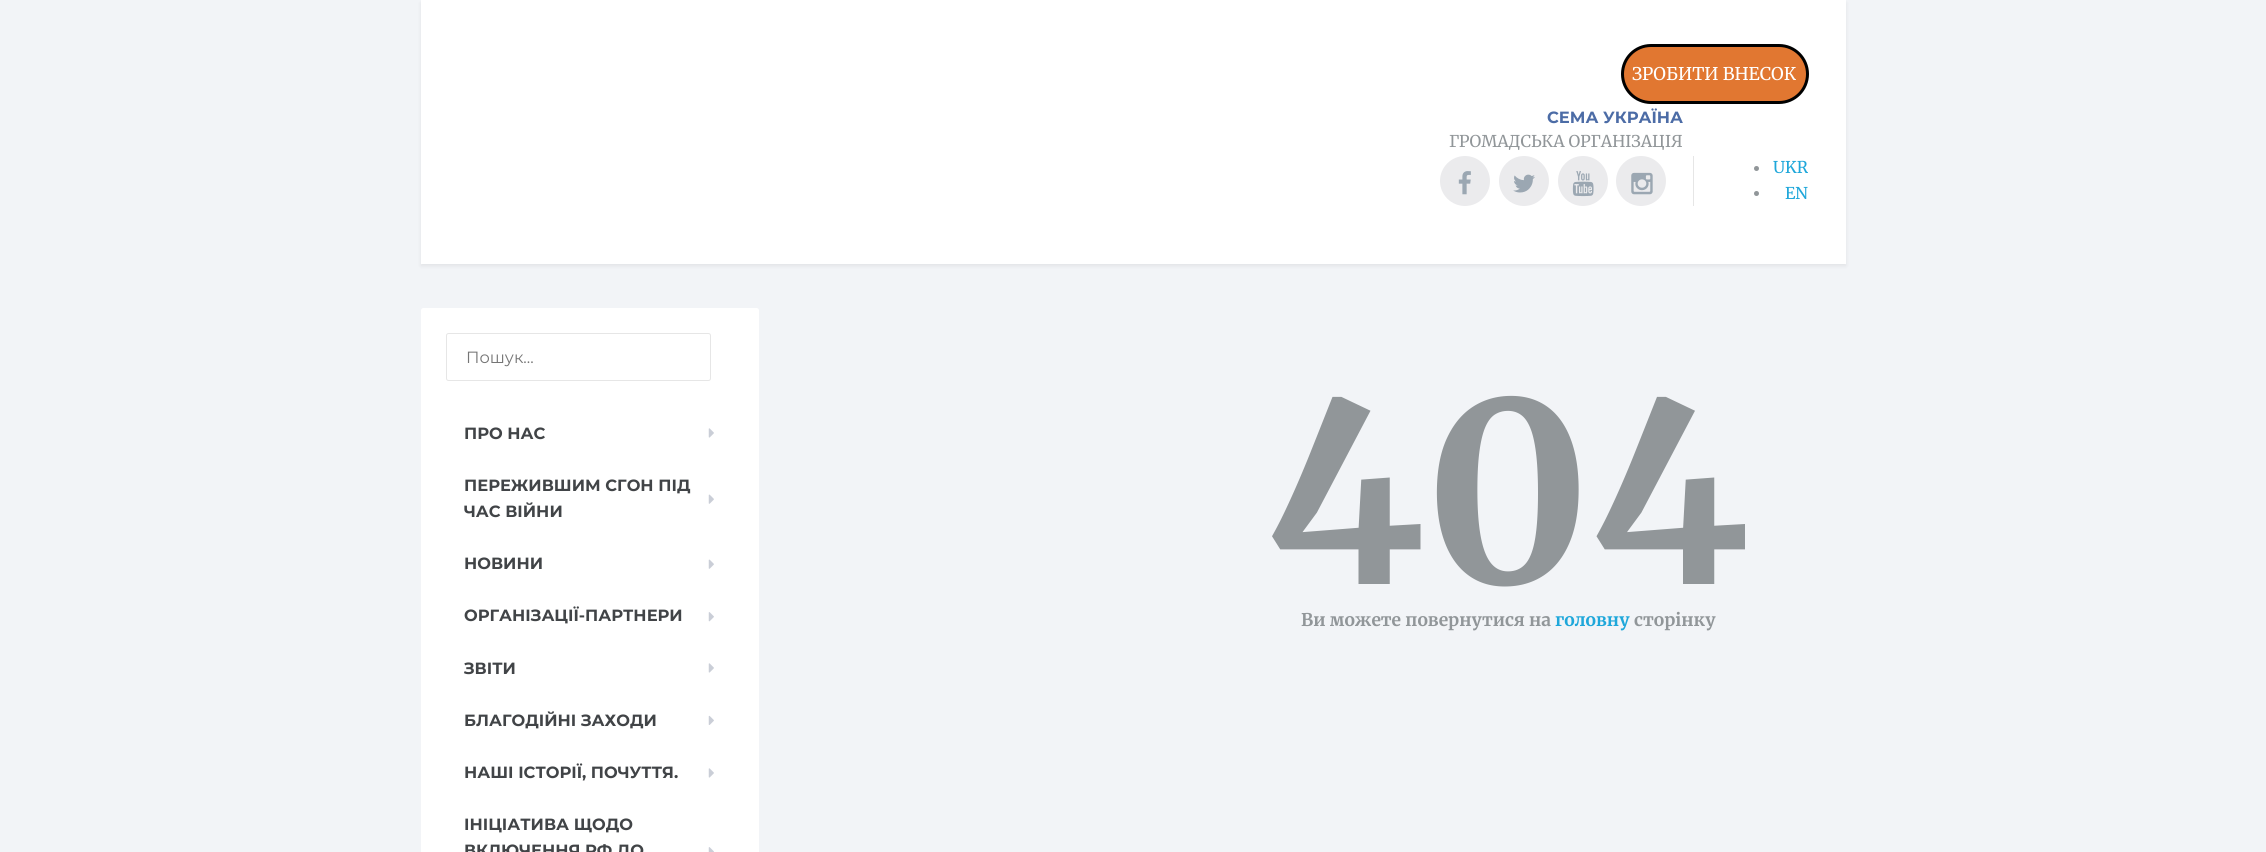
#include <cairo.h>
#include <math.h>
#include <stddef.h>


static void set_color(cairo_t *cr, unsigned color) {
    cairo_set_source_rgb(cr, (color >> 16) / 255.0, (color >> 8 & 255) / 255.0, (color & 255) / 255.0);
}

static void draw_text(cairo_t *cr, double x, double y, const char *s, const char *family, double size, int italic, int bold, unsigned color) {
    cairo_select_font_face(cr, family, italic ? CAIRO_FONT_SLANT_ITALIC : CAIRO_FONT_SLANT_NORMAL,
        bold ? CAIRO_FONT_WEIGHT_BOLD : CAIRO_FONT_WEIGHT_NORMAL);
    cairo_set_font_size(cr, size);
    set_color(cr, color);
    cairo_move_to(cr, x, y);
    cairo_show_text(cr, s);
}

static void fill_rect(cairo_t *cr, double x, double y, double w, double h, unsigned color) {
    set_color(cr, color);
    cairo_rectangle(cr, x, y, w, h);
    cairo_fill(cr);
}

static void rounded_rect(cairo_t *cr, double x, double y, double w, double h, double r) {
    cairo_new_sub_path(cr);
    cairo_arc(cr, x + w - r, y + h - r, r, 0, M_PI / 2);
    cairo_arc(cr, x + r, y + h - r, r, M_PI / 2, M_PI);
    cairo_arc(cr, x + r, y + r, r, M_PI, 1.5 * M_PI);
    cairo_arc(cr, x + w - r, y + r, r, 1.5 * M_PI, 2 * M_PI);
    cairo_close_path(cr);
}

static void draw_shadow(cairo_t *cr, double x, double y, double w, double h, double r, double blur, double alpha) {
    cairo_push_group_with_content(cr, CAIRO_CONTENT_ALPHA);
    cairo_set_operator(cr, CAIRO_OPERATOR_SOURCE);
    for (int i = 15; i >= -15 && fmin(w, h) + blur * i / 3 > 0; i -= 2) {
        double e = blur * i / 6;
        cairo_set_source_rgba(cr, 0, 0, 0, alpha * erfc((i - 1) / 8.5) / 2);
        rounded_rect(cr, x - e, y - e, w + 2 * e, h + 2 * e, fmax(0, fmin(r + e + blur * .6, fmin(w, h) / 2 + e)));
        cairo_fill(cr);
    }
    cairo_pattern_t *soft = cairo_pop_group(cr);
    cairo_mask(cr, soft);
    cairo_pattern_destroy(soft);
}

static void draw_image(cairo_t *cr, const char *path, double x, double y, double w, double h) {
    cairo_surface_t *image = cairo_image_surface_create_from_png(path);
    cairo_save(cr);
    cairo_set_source_surface(cr, image, x, y);
    cairo_rectangle(cr, x, y, w, h);
    cairo_fill(cr);
    cairo_restore(cr);
    cairo_surface_destroy(image);
}

int main(void) {
    cairo_surface_t *surface = cairo_image_surface_create(CAIRO_FORMAT_RGB24, 2266, 852);
    cairo_t *cr = cairo_create(surface);
    cairo_font_options_t *options = cairo_font_options_create();
    cairo_font_options_set_hint_metrics(options, CAIRO_HINT_METRICS_OFF);
    cairo_font_options_set_hint_style(options, CAIRO_HINT_STYLE_NONE);
    cairo_set_font_options(cr, options);
    cairo_set_miter_limit(cr, 4);
    set_color(cr, 0xF2F4F7);
    cairo_paint(cr);
    set_color(cr, 0x1F1F1F);
    draw_shadow(cr, 421, 3, 1425, 263, 0, 2, 0.08);
    fill_rect(cr, 421, 0, 1425, 264, 0xFFFFFF);
    set_color(cr, 0xE17731);
    rounded_rect(cr, 1622.5, 45.5, 185, 57, 28.5);
    cairo_fill_preserve(cr);
    set_color(cr, 0x000000);
    cairo_set_line_width(cr, 3);
    cairo_stroke(cr);
    draw_text(cr, 1632, 80, "ЗРОБИТИ ВНЕСОК", "Merriweather", 17.5, 0, 0, 0xFFFFFF);
    draw_text(cr, 1547, 123, "СЕМА УКРАЇНА", "Montserrat", 16.25, 0, 1, 0x4C6CA6);
    draw_text(cr, 1449, 147, "ГРОМАДСЬКА ОРГАНІЗАЦІЯ", "Merriweather", 16.25, 0, 0, 0x919699);
    set_color(cr, 0xEBEBED);
    cairo_new_path(cr);
    cairo_arc(cr, 1465, 181, 25, 0, 2 * M_PI);
    cairo_fill(cr);
    draw_image(cr, "assets/img1.png", 1458, 171, 13, 24);
    cairo_arc(cr, 1524, 181, 25, 0, 2 * M_PI);
    cairo_fill(cr);
    draw_image(cr, "assets/img2.png", 1513, 174, 22, 19);
    cairo_arc(cr, 1583, 181, 25, 0, 2 * M_PI);
    cairo_fill(cr);
    draw_image(cr, "assets/img3.png", 1572, 171, 22, 26);
    cairo_arc(cr, 1641, 181, 25, 0, 2 * M_PI);
    cairo_fill(cr);
    draw_image(cr, "assets/img4.png", 1631, 172, 22, 23);
    fill_rect(cr, 1693, 156, 1, 50, 0xE6E6E6);
    set_color(cr, 0x919699);
    cairo_arc(cr, 1756.5, 168.5, 2.5, 0, 2 * M_PI);
    cairo_fill(cr);
    draw_text(cr, 1773, 173, "UKR", "Merriweather", 16.25, 0, 0, 0x1FA7DA);
    set_color(cr, 0x919699);
    cairo_new_path(cr);
    cairo_arc(cr, 1756.5, 193.5, 2.5, 0, 2 * M_PI);
    cairo_fill(cr);
    draw_text(cr, 1785, 199, "EN", "Merriweather", 16.25, 0, 0, 0x1FA7DA);
    set_color(cr, 0xFFFFFF);
    rounded_rect(cr, 421, 308, 338, 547, 2.5);
    cairo_fill(cr);
    rounded_rect(cr, 446.5, 333.5, 264, 47, 2);
    set_color(cr, 0xE6E6E6);
    cairo_set_line_width(cr, 1);
    cairo_stroke(cr);
    draw_text(cr, 466, 363, "Пошук...", "Montserrat", 16.25, 0, 0, 0x757575);
    draw_text(cr, 464, 439, "ПРО НАС", "Montserrat", 16.25, 0, 1, 0x414447);
    draw_image(cr, "assets/img5.png", 708, 428, 6, 10);
    draw_text(cr, 464, 491, "ПЕРЕЖИВШИМ СГОН ПІД", "Montserrat", 16.25, 0, 1, 0x414447);
    draw_image(cr, "assets/img6.png", 708, 494, 6, 10);
    draw_text(cr, 464, 517, "ЧАС ВІЙНИ", "Montserrat", 16.25, 0, 1, 0x414447);
    draw_text(cr, 464, 569, "НОВИНИ", "Montserrat", 16.25, 0, 1, 0x414447);
    draw_image(cr, "assets/img6.png", 708, 559, 6, 10);
    draw_text(cr, 464, 621, "ОРГАНІЗАЦІЇ-ПАРТНЕРИ", "Montserrat", 16.25, 0, 1, 0x414447);
    draw_image(cr, "assets/img7.png", 708, 612, 6, 10);
    draw_text(cr, 464, 674, "ЗВІТИ", "Montserrat", 16.25, 0, 1, 0x414447);
    draw_image(cr, "assets/img5.png", 708, 663, 6, 10);
    draw_text(cr, 464, 726, "БЛАГОДІЙНІ ЗАХОДИ", "Montserrat", 16.25, 0, 1, 0x414447);
    draw_image(cr, "assets/img8.png", 708, 715, 6, 10);
    draw_text(cr, 464, 778, "НАШІ ІСТОРІЇ, ПОЧУТТЯ.", "Montserrat", 16.25, 0, 1, 0x414447);
    draw_image(cr, "assets/img5.png", 708, 768, 6, 10);
    draw_text(cr, 464, 830, "ІНІЦІАТИВА ЩОДО", "Montserrat", 16.25, 0, 1, 0x414447);
    draw_text(cr, 464, 856, "ВКЛЮЧЕННЯ РФ ДО", "Montserrat", 16.25, 0, 1, 0x414447);
    draw_image(cr, "assets/img9.png", 708, 847, 6, 5);
    draw_text(cr, 1266, 584, "404", "Merriweather", 250, 0, 1, 0x919699);
    draw_text(cr, 1301, 626, "Ви можете повернутися на", "Merriweather", 17.5, 0, 1, 0x919699);
    draw_text(cr, 1555, 626, "головну", "Merriweather", 17.5, 0, 1, 0x1FA7DA);
    draw_text(cr, 1634, 626, "сторінку", "Merriweather", 17.5, 0, 1, 0x919699);
    cairo_surface_write_to_png(surface, "output.png");
    cairo_font_options_destroy(options);
    cairo_destroy(cr);
    cairo_surface_destroy(surface);
    return 0;
}
